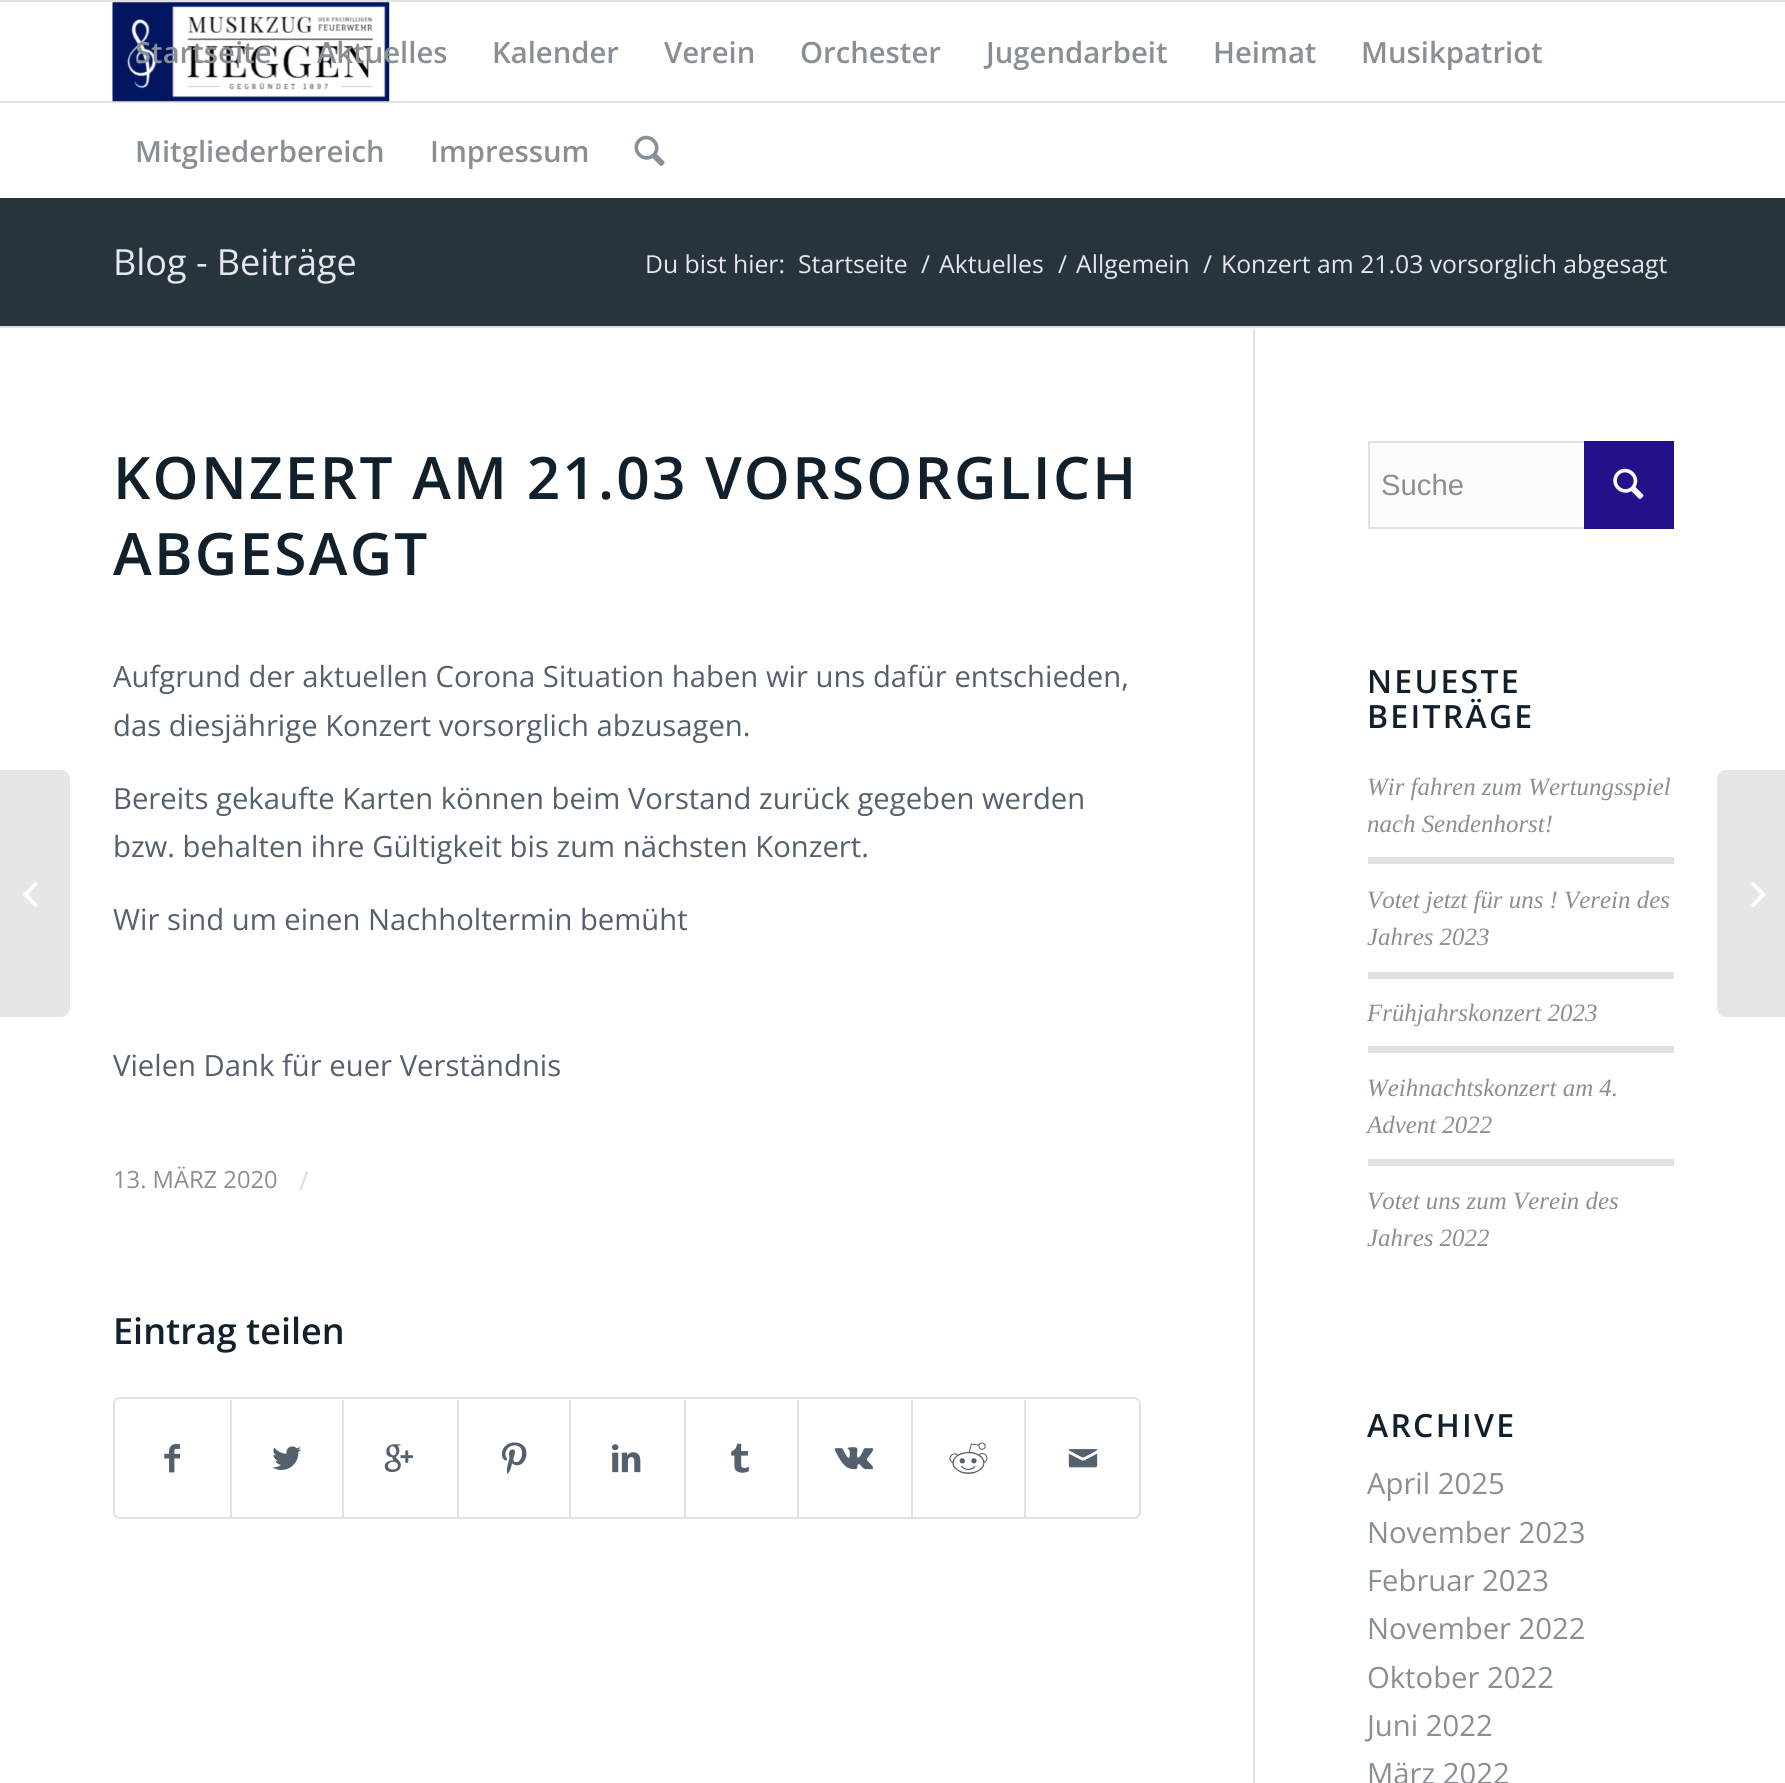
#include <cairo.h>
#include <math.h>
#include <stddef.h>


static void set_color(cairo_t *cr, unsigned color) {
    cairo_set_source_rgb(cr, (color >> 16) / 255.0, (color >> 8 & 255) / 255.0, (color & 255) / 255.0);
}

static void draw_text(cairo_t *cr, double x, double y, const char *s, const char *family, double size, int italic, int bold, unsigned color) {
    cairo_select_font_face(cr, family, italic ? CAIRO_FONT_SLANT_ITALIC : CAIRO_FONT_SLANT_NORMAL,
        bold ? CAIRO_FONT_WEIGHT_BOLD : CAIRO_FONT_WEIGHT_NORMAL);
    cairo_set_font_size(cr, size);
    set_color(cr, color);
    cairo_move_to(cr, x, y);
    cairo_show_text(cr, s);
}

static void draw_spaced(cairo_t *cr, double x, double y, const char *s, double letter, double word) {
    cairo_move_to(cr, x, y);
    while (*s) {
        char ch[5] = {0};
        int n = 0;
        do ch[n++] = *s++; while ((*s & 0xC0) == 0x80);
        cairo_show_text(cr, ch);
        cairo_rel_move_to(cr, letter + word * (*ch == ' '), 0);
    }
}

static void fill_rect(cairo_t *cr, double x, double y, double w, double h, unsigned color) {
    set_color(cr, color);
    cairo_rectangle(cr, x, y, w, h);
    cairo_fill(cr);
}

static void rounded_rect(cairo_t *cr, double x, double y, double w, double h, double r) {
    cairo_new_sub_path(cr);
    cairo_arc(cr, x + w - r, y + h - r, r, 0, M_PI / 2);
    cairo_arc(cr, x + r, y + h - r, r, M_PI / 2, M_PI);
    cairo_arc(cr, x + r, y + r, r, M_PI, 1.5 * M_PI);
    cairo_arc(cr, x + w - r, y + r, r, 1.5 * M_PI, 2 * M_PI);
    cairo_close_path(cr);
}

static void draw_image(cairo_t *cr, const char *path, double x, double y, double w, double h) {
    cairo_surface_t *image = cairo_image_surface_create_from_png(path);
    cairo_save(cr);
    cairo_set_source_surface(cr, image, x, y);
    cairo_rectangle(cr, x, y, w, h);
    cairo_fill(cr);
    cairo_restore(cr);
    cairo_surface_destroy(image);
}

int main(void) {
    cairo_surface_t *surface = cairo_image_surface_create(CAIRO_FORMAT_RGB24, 1785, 1783);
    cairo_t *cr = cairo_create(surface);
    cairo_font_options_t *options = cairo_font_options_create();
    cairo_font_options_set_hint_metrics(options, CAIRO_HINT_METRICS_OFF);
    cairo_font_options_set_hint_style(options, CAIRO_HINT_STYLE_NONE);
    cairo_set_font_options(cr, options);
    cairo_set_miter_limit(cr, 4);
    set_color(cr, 0xFFFFFF);
    cairo_paint(cr);
    fill_rect(cr, 0, 0, 1785, 2, 0xE1E1E1);
    fill_rect(cr, 0, 101, 1785, 2, 0xE1E1E1);
    draw_image(cr, "assets/img1.png", 112, 2, 278, 100);
    draw_text(cr, 135, 63, "Startseite", "Open Sans SemiBold", 29.25, 0, 0, 0x889095);
    draw_text(cr, 317, 63, "Aktuelles", "Open Sans SemiBold", 29.25, 0, 0, 0x889095);
    draw_text(cr, 492, 63, "Kalender", "Open Sans SemiBold", 29.25, 0, 0, 0x889095);
    draw_text(cr, 664, 63, "Verein", "Open Sans SemiBold", 29.25, 0, 0, 0x889095);
    draw_text(cr, 800, 63, "Orchester", "Open Sans SemiBold", 29.25, 0, 0, 0x889095);
    draw_text(cr, 986, 63, "Jugendarbeit", "Open Sans SemiBold", 29.25, 0, 0, 0x889095);
    draw_text(cr, 1213, 63, "Heimat", "Open Sans SemiBold", 29.25, 0, 0, 0x889095);
    draw_text(cr, 1361, 63, "Musikpatriot", "Open Sans SemiBold", 29.25, 0, 0, 0x889095);
    draw_text(cr, 135, 162, "Mitgliederbereich", "Open Sans SemiBold", 29.25, 0, 0, 0x889095);
    draw_text(cr, 430, 162, "Impressum", "Open Sans SemiBold", 29.25, 0, 0, 0x889095);
    draw_image(cr, "assets/img2.png", 634, 135, 31, 31);
    set_color(cr, 0xE6E6E6);
    cairo_new_path(cr);
    cairo_move_to(cr, 0, 770);
    cairo_line_to(cr, 61, 770);
    cairo_curve_to(cr, 66, 770, 70, 774, 70, 779);
    cairo_line_to(cr, 70, 1008);
    cairo_curve_to(cr, 70, 1013, 66, 1017, 61, 1017);
    cairo_line_to(cr, 0, 1017);
    cairo_close_path(cr);
    cairo_fill(cr);
    draw_image(cr, "assets/img3.png", 23, 882, 15, 25);
    fill_rect(cr, 0, 198, 1785, 128, 0x28343C);
    draw_text(cr, 113, 275, "Blog - Beiträge", "Open Sans", 36, 0, 0, 0xE4E6F0);
    draw_text(cr, 645, 273, "Du bist hier:", "Open Sans", 24.75, 0, 0, 0xE4E6F0);
    draw_text(cr, 798, 273, "Startseite", "Open Sans", 24.75, 0, 0, 0xE4E6F0);
    draw_text(cr, 921, 273, "/", "Open Sans", 24.75, 0, 0, 0xE4E6F0);
    draw_text(cr, 939, 273, "Aktuelles", "Open Sans", 24.75, 0, 0, 0xE4E6F0);
    draw_text(cr, 1058, 273, "/", "Open Sans", 24.75, 0, 0, 0xE4E6F0);
    draw_text(cr, 1076, 273, "Allgemein", "Open Sans", 24.75, 0, 0, 0xE4E6F0);
    draw_text(cr, 1203, 273, "/", "Open Sans", 24.75, 0, 0, 0xE4E6F0);
    draw_text(cr, 1221, 273, "Konzert am 21.03 vorsorglich abgesagt", "Open Sans", 24.75, 0, 0, 0xE4E6F0);
    fill_rect(cr, 0, 326, 1785, 2, 0xE1E1E1);
    cairo_select_font_face(cr, "Open Sans SemiBold", CAIRO_FONT_SLANT_NORMAL, CAIRO_FONT_WEIGHT_NORMAL);
    cairo_set_font_size(cr, 58.5);
    set_color(cr, 0x11202A);
    draw_spaced(cr, 113, 499, "KONZERT AM 21.03 VORSORGLICH", 2.25, 0);
    draw_spaced(cr, 113, 575, "ABGESAGT", 2.25, 0);
    draw_text(cr, 113, 687, "Aufgrund der aktuellen Corona Situation haben wir uns dafür entschieden,", "Open Sans", 29.25, 0, 0, 0x55606E);
    draw_text(cr, 113, 736, "das diesjährige Konzert vorsorglich abzusagen.", "Open Sans", 29.25, 0, 0, 0x55606E);
    draw_text(cr, 113, 809, "Bereits gekaufte Karten können beim Vorstand zurück gegeben werden", "Open Sans", 29.25, 0, 0, 0x55606E);
    draw_text(cr, 113, 857, "bzw. behalten ihre Gültigkeit bis zum nächsten Konzert.", "Open Sans", 29.25, 0, 0, 0x55606E);
    draw_text(cr, 113, 930, "Wir sind um einen Nachholtermin bemüht", "Open Sans", 29.25, 0, 0, 0x55606E);
    draw_text(cr, 113, 1076, "Vielen Dank für euer Verständnis", "Open Sans", 29.25, 0, 0, 0x55606E);
    draw_text(cr, 113, 1188, "13. MÄRZ 2020", "Open Sans", 23.75, 0, 0, 0x889095);
    draw_text(cr, 299, 1190, "/", "Open Sans", 26, 0, 0, 0xDBDEDF);
    draw_text(cr, 113, 1344, "Eintrag teilen", "Open Sans SemiBold", 36, 0, 0, 0x11202A);
    rounded_rect(cr, 114, 1398, 1026, 120, 6);
    set_color(cr, 0xE1E1E1);
    cairo_stroke(cr);
    draw_image(cr, "assets/img4.png", 164, 1444, 16, 29);
    fill_rect(cr, 230, 1400, 2, 117, 0xE1E1E1);
    draw_image(cr, "assets/img5.png", 272, 1446, 29, 24);
    fill_rect(cr, 342, 1400, 2, 117, 0xE1E1E1);
    draw_image(cr, "assets/img6.png", 384, 1444, 29, 29);
    fill_rect(cr, 457, 1400, 2, 117, 0xE1E1E1);
    draw_image(cr, "assets/img7.png", 501, 1442, 26, 32);
    fill_rect(cr, 569, 1400, 2, 117, 0xE1E1E1);
    draw_image(cr, "assets/img8.png", 612, 1444, 29, 29);
    fill_rect(cr, 684, 1400, 2, 117, 0xE1E1E1);
    draw_image(cr, "assets/img9.png", 731, 1443, 18, 30);
    fill_rect(cr, 797, 1400, 2, 117, 0xE1E1E1);
    draw_image(cr, "assets/img10.png", 834, 1447, 40, 23);
    fill_rect(cr, 911, 1400, 2, 117, 0xE1E1E1);
    draw_image(cr, "assets/img11.png", 949, 1442, 39, 32);
    fill_rect(cr, 1024, 1400, 2, 117, 0xE1E1E1);
    draw_image(cr, "assets/img12.png", 1068, 1449, 30, 19);
    fill_rect(cr, 1253, 329, 2, 1454, 0xE1E1E1);
    fill_rect(cr, 1370, 443, 214, 84, 0xFCFCFC);
    cairo_rectangle(cr, 1369, 442, 304, 86);
    set_color(cr, 0xE1E1E1);
    cairo_stroke(cr);
    draw_text(cr, 1381, 495, "Suche", "Liberation Sans", 29.25, 0, 0, 0x889095);
    fill_rect(cr, 1584, 441, 90, 88, 0x21118A);
    draw_image(cr, "assets/img13.png", 1613, 468, 31, 31);
    cairo_select_font_face(cr, "Open Sans SemiBold", CAIRO_FONT_SLANT_NORMAL, CAIRO_FONT_WEIGHT_NORMAL);
    cairo_set_font_size(cr, 32);
    set_color(cr, 0x11202A);
    draw_spaced(cr, 1367, 693, "NEUESTE", 2.25, 0);
    draw_spaced(cr, 1367, 728, "BEITRÄGE", 2.25, 0);
    draw_text(cr, 1367, 795, "Wir fahren zum Wertungsspiel", "Liberation Serif", 24.9, 1, 0, 0x889095);
    draw_text(cr, 1367, 832, "nach Sendenhorst!", "Liberation Serif", 24.9, 1, 0, 0x889095);
    fill_rect(cr, 1368, 857, 306, 7, 0xE1E1E1);
    draw_text(cr, 1367, 908, "Votet jetzt für uns ! Verein des", "Liberation Serif", 24.9, 1, 0, 0x889095);
    draw_text(cr, 1367, 945, "Jahres 2023", "Liberation Serif", 24.9, 1, 0, 0x889095);
    fill_rect(cr, 1368, 972, 306, 7, 0xE1E1E1);
    draw_text(cr, 1367, 1021, "Frühjahrskonzert 2023", "Liberation Serif", 24.9, 1, 0, 0x889095);
    fill_rect(cr, 1368, 1046, 306, 7, 0xE1E1E1);
    draw_text(cr, 1367, 1096, "Weihnachtskonzert am 4.", "Liberation Serif", 24.9, 1, 0, 0x889095);
    draw_text(cr, 1367, 1133, "Advent 2022", "Liberation Serif", 24.9, 1, 0, 0x889095);
    fill_rect(cr, 1368, 1159, 306, 7, 0xE1E1E1);
    draw_text(cr, 1367, 1209, "Votet uns zum Verein des", "Liberation Serif", 24.9, 1, 0, 0x889095);
    draw_text(cr, 1367, 1246, "Jahres 2022", "Liberation Serif", 24.9, 1, 0, 0x889095);
    cairo_select_font_face(cr, "Open Sans SemiBold", CAIRO_FONT_SLANT_NORMAL, CAIRO_FONT_WEIGHT_NORMAL);
    cairo_set_font_size(cr, 32);
    set_color(cr, 0x11202A);
    draw_spaced(cr, 1367, 1437, "ARCHIVE", 2.25, 0);
    draw_text(cr, 1367, 1494, "April 2025", "Open Sans", 29.25, 0, 0, 0x889095);
    draw_text(cr, 1367, 1543, "November 2023", "Open Sans", 29.25, 0, 0, 0x889095);
    draw_text(cr, 1367, 1591, "Februar 2023", "Open Sans", 29.25, 0, 0, 0x889095);
    draw_text(cr, 1367, 1639, "November 2022", "Open Sans", 29.25, 0, 0, 0x889095);
    draw_text(cr, 1367, 1688, "Oktober 2022", "Open Sans", 29.25, 0, 0, 0x889095);
    draw_text(cr, 1367, 1736, "Juni 2022", "Open Sans", 29.25, 0, 0, 0x889095);
    draw_text(cr, 1367, 1784, "März 2022", "Open Sans", 29.25, 0, 0, 0x889095);
    set_color(cr, 0xE6E6E6);
    cairo_new_path(cr);
    cairo_move_to(cr, 1726, 770);
    cairo_line_to(cr, 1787, 770);
    cairo_line_to(cr, 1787, 1017);
    cairo_line_to(cr, 1726, 1017);
    cairo_curve_to(cr, 1721, 1017, 1717, 1013, 1717, 1008);
    cairo_line_to(cr, 1717, 779);
    cairo_curve_to(cr, 1717, 774, 1721, 770, 1726, 770);
    cairo_close_path(cr);
    cairo_fill(cr);
    draw_image(cr, "assets/img14.png", 1751, 882, 15, 25);
    cairo_surface_write_to_png(surface, "output.png");
    cairo_font_options_destroy(options);
    cairo_destroy(cr);
    cairo_surface_destroy(surface);
    return 0;
}
